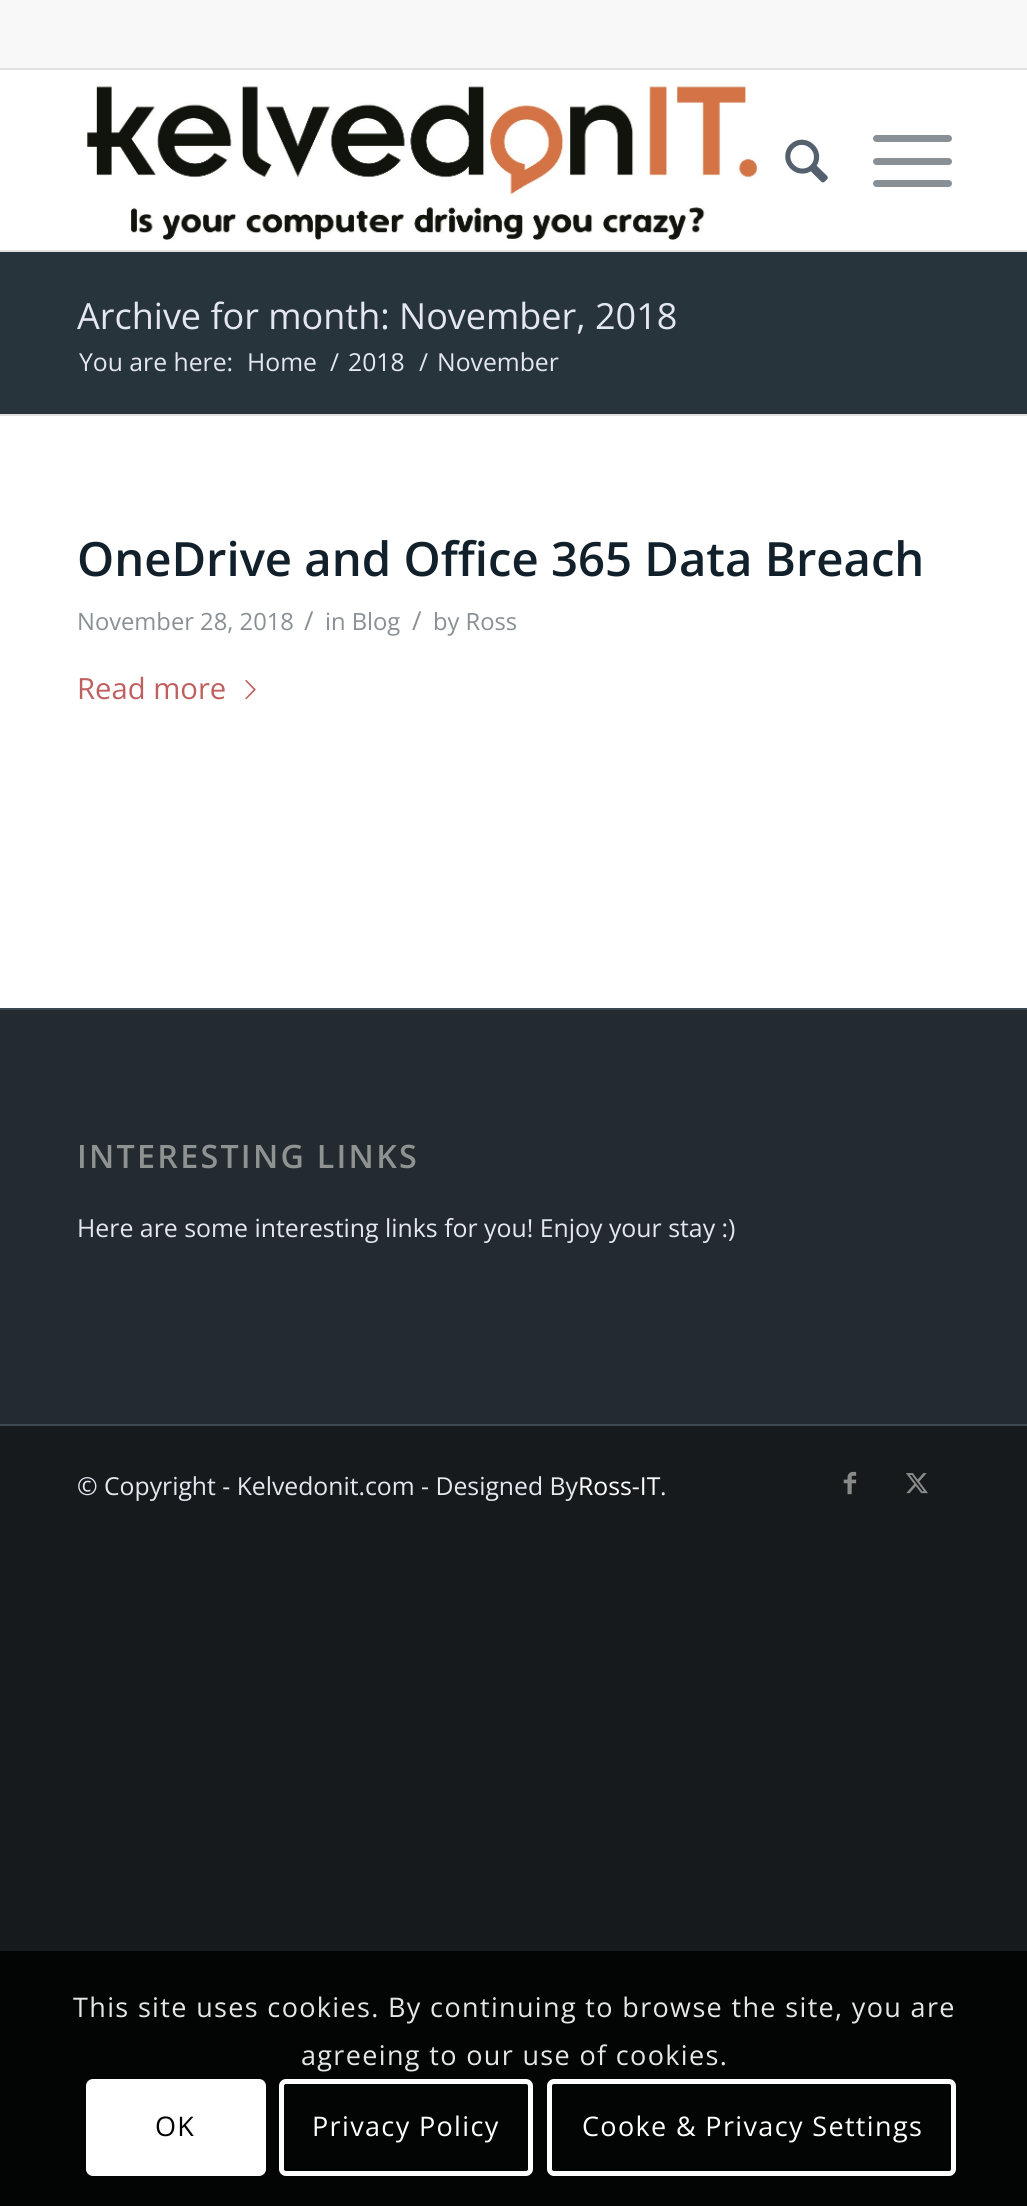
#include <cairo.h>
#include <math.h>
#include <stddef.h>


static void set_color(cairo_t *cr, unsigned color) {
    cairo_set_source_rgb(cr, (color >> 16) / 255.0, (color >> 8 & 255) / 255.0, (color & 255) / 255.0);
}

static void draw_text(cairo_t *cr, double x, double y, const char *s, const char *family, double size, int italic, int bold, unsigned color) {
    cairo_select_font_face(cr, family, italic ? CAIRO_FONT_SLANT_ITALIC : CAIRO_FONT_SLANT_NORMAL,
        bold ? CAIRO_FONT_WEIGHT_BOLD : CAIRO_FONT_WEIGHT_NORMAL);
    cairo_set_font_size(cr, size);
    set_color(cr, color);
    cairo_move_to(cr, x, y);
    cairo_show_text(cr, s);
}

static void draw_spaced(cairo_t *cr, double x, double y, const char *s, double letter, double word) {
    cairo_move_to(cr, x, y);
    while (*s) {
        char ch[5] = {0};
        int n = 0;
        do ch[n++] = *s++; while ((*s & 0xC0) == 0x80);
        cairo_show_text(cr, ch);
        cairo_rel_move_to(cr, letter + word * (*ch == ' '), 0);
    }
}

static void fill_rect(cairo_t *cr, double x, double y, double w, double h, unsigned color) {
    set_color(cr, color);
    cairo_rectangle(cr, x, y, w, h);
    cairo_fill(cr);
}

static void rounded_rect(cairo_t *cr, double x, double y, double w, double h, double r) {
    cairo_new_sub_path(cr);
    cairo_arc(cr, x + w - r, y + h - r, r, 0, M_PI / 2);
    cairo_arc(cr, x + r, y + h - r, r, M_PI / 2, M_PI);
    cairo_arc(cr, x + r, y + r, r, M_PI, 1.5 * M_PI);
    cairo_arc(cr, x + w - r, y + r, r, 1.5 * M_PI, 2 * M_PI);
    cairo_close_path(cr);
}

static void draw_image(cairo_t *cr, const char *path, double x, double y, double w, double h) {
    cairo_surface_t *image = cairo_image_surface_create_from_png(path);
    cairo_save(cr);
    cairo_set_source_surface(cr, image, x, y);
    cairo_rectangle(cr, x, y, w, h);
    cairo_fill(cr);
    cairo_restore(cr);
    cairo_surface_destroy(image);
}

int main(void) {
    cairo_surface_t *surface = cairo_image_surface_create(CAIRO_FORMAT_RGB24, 1027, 2206);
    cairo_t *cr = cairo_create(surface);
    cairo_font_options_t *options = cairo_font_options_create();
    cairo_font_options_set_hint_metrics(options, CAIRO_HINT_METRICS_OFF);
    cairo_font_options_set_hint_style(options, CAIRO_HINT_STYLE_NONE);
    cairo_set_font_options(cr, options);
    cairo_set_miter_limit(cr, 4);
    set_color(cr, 0x161A1C);
    cairo_paint(cr);
    fill_rect(cr, 0, 70, 1027, 938, 0xFFFFFF);
    fill_rect(cr, 0, 0, 1027, 68, 0xF8F8F8);
    fill_rect(cr, 0, 68, 1027, 2, 0xE1E1E1);
    fill_rect(cr, 0, 250, 1027, 2, 0xE1E1E1);
    draw_image(cr, "assets/img1.png", 86, 85, 673, 156);
    draw_image(cr, "assets/img2.png", 785, 139, 43, 44);
    set_color(cr, 0x889095);
    rounded_rect(cr, 873, 158, 79, 7, 3.5);
    cairo_fill(cr);
    rounded_rect(cr, 873, 135, 79, 7, 3.5);
    cairo_fill(cr);
    rounded_rect(cr, 873, 180, 79, 7, 3.5);
    cairo_fill(cr);
    fill_rect(cr, 0, 252, 1027, 162, 0x28343C);
    draw_text(cr, 77, 329, "Archive for month: November, 2018", "Open Sans", 36, 0, 0, 0xE4E6F0);
    draw_text(cr, 79, 371, "You are here:", "Open Sans", 24.75, 0, 0, 0xE4E6F0);
    draw_text(cr, 247, 371, "Home", "Open Sans", 24.75, 0, 0, 0xE4E6F0);
    draw_text(cr, 330, 371, "/", "Open Sans", 24.75, 0, 0, 0xE4E6F0);
    draw_text(cr, 348, 371, "2018", "Open Sans", 24.75, 0, 0, 0xE4E6F0);
    draw_text(cr, 419, 371, "/", "Open Sans", 24.75, 0, 0, 0xE4E6F0);
    draw_text(cr, 437, 371, "November", "Open Sans", 24.75, 0, 0, 0xE4E6F0);
    fill_rect(cr, 0, 414, 1027, 2, 0xE1E1E1);
    draw_text(cr, 77, 576, "OneDrive and Office 365 Data Breach", "Open Sans SemiBold", 47.25, 0, 0, 0x11202A);
    draw_text(cr, 77, 630, "November 28, 2018", "Open Sans", 23.75, 0, 0, 0x889095);
    draw_text(cr, 304, 630, "/", "Open Sans", 26, 0, 0, 0x889095);
    draw_text(cr, 325, 630, "in Blog", "Open Sans", 23.75, 0, 0, 0x889095);
    draw_text(cr, 412, 630, "/", "Open Sans", 26, 0, 0, 0x889095);
    draw_text(cr, 433, 630, "by Ross", "Open Sans", 23.75, 0, 0, 0x889095);
    draw_text(cr, 77, 699, "Read more", "Open Sans", 29.25, 0, 0, 0xC05F5F);
    draw_image(cr, "assets/img3.png", 245, 680, 11, 20);
    fill_rect(cr, 0, 1010, 1027, 414, 0x232B30);
    fill_rect(cr, 0, 1008, 1027, 2, 0x384852);
    cairo_select_font_face(cr, "Open Sans SemiBold", CAIRO_FONT_SLANT_NORMAL, CAIRO_FONT_WEIGHT_NORMAL);
    cairo_set_font_size(cr, 32.25);
    set_color(cr, 0x8E9392);
    draw_spaced(cr, 77, 1168, "INTERESTING LINKS", 2.25, 0);
    draw_text(cr, 77, 1237, "Here are some interesting links for you! Enjoy your stay :)", "Open Sans", 24.85, 0, 0, 0xE4E6F0);
    fill_rect(cr, 0, 1424, 1027, 2, 0x3E4A52);
    draw_text(cr, 77, 1495, "© Copyright - Kelvedonit.com - Designed By", "Open Sans", 24.75, 0, 0, 0xE4E6F0);
    draw_text(cr, 578, 1495, "Ross-IT", "Open Sans", 24.75, 0, 0, 0xFFFFFF);
    draw_text(cr, 660, 1495, ".", "Open Sans", 24.75, 0, 0, 0xE4E6F0);
    draw_image(cr, "assets/img4.png", 843, 1471, 14, 24);
    draw_image(cr, "assets/img5.png", 906, 1473, 22, 21);
    fill_rect(cr, 0, 1951, 1027, 255, 0x030404);
    cairo_set_font_size(cr, 27);
    set_color(cr, 0xE6E6E6);
    draw_spaced(cr, 73, 2017, "This site uses cookies. By continuing to browse the site, you are", 1.35, 0);
    draw_spaced(cr, 301, 2065, "agreeing to our use of cookies.", 1.35, 0);
    set_color(cr, 0xFFFFFF);
    rounded_rect(cr, 86, 2079, 180, 97, 7);
    cairo_fill(cr);
    set_color(cr, 0x000000);
    draw_spaced(cr, 155, 2136, "OK", 1.35, 0);
    rounded_rect(cr, 281.5, 2081.5, 249, 92, 4.5);
    set_color(cr, 0xFFFFFF);
    cairo_set_line_width(cr, 5);
    cairo_stroke(cr);
    draw_spaced(cr, 312, 2136, "Privacy Policy", 1.35, 0);
    rounded_rect(cr, 549.5, 2081.5, 404, 92, 4.5);
    cairo_stroke(cr);
    draw_spaced(cr, 582, 2136, "Cooke & Privacy Settings", 1.35, 0);
    cairo_surface_write_to_png(surface, "output.png");
    cairo_font_options_destroy(options);
    cairo_destroy(cr);
    cairo_surface_destroy(surface);
    return 0;
}
